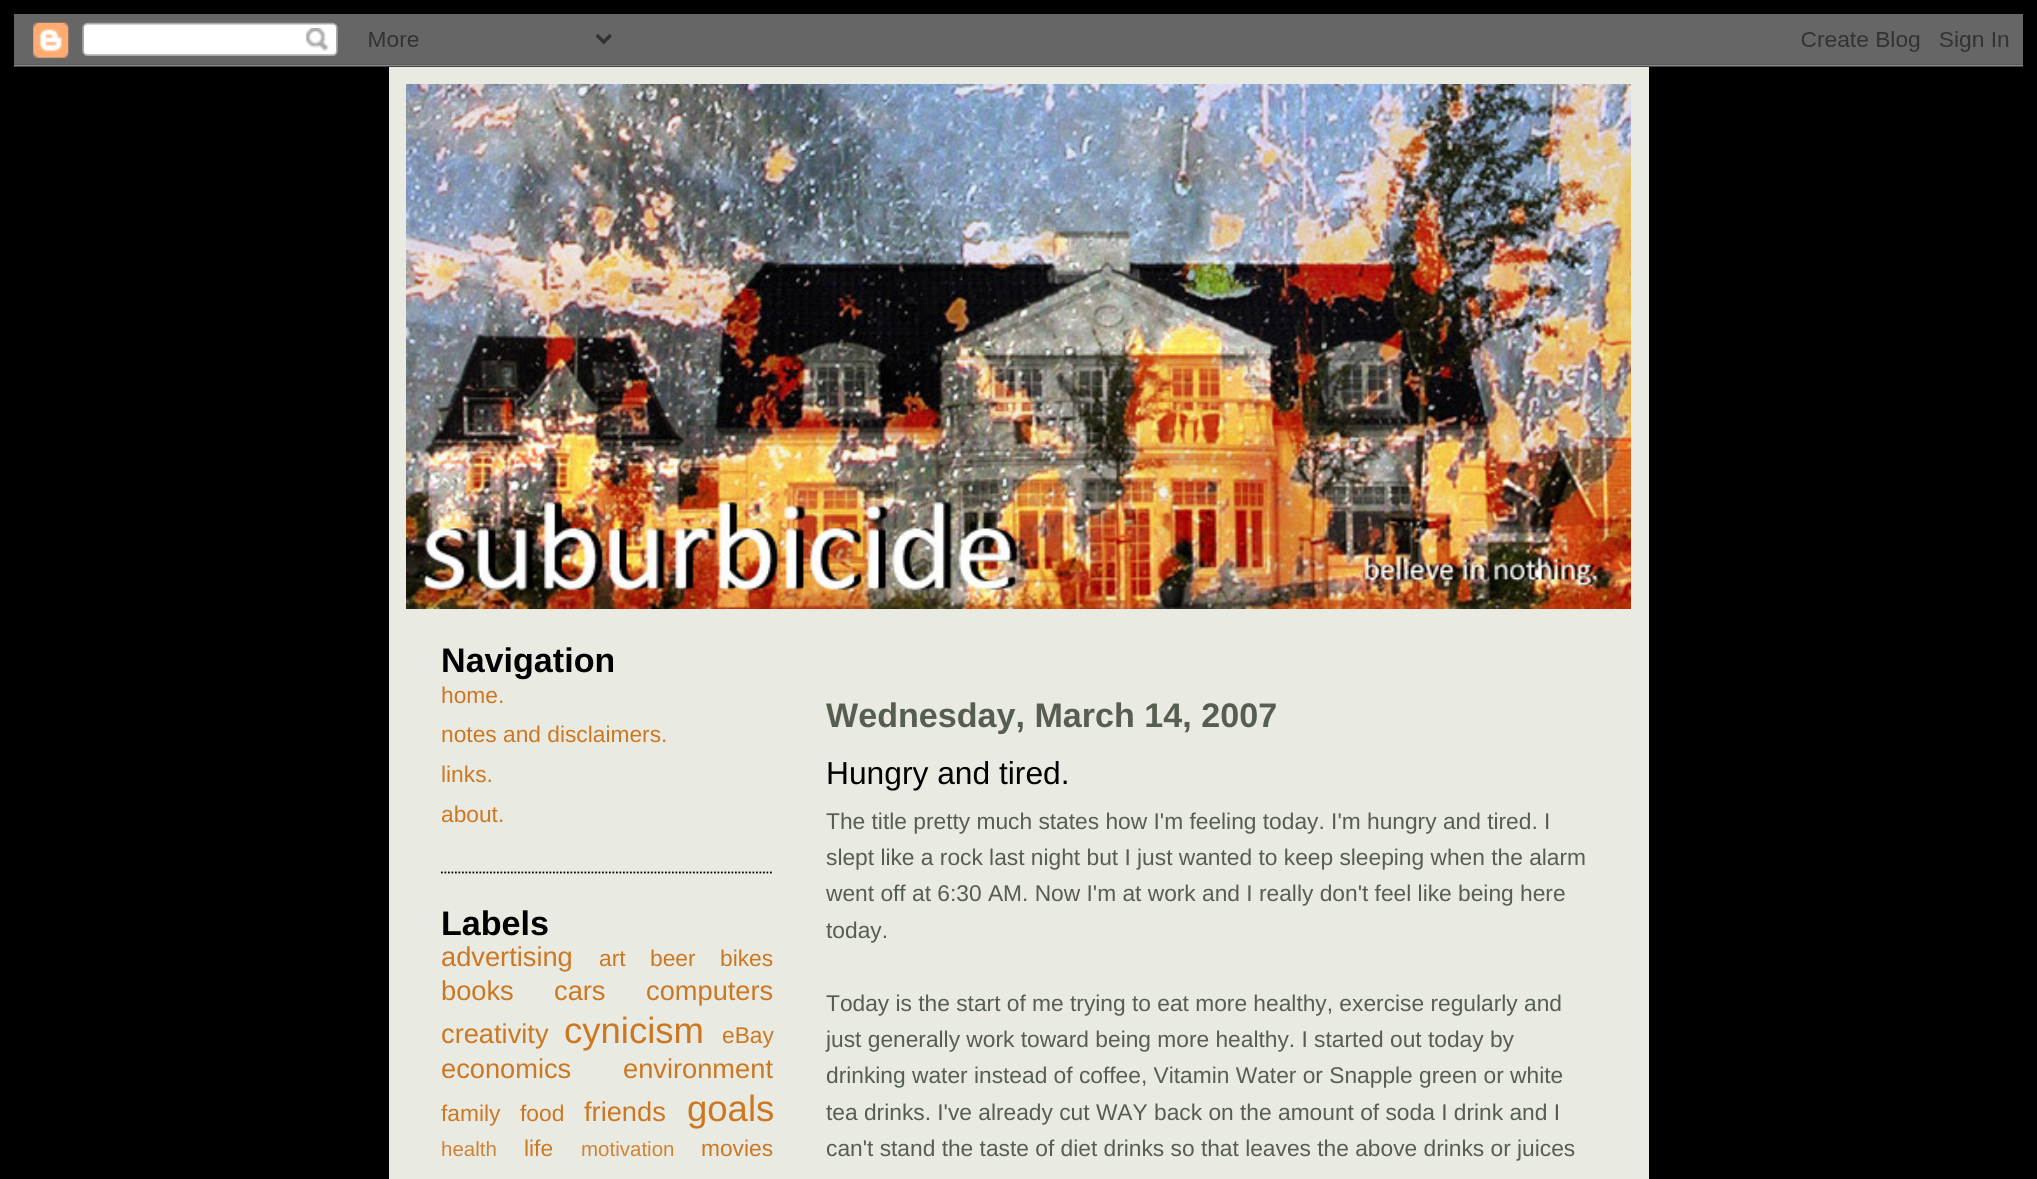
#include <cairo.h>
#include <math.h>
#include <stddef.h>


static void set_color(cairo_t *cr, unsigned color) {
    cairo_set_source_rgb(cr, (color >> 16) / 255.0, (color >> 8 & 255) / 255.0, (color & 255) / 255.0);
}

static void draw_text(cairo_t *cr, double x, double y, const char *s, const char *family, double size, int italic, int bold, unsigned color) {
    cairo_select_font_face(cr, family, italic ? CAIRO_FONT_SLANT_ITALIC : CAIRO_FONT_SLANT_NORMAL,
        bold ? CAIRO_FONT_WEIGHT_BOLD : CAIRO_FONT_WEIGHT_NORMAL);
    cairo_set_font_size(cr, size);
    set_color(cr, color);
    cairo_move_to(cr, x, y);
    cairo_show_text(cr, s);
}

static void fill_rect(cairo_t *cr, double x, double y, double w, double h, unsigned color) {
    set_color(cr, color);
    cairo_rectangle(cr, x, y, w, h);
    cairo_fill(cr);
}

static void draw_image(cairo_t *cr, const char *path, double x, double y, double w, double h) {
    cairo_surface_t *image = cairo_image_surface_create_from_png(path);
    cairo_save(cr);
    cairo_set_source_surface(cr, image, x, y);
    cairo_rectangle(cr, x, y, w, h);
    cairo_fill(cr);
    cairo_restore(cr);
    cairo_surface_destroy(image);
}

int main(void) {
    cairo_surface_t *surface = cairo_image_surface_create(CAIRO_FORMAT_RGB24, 2037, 1179);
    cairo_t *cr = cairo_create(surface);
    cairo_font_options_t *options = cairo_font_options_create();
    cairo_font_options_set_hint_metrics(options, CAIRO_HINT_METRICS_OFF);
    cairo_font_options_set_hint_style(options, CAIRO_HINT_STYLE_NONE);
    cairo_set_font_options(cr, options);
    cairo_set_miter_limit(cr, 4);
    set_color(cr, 0x000000);
    cairo_paint(cr);
    draw_image(cr, "assets/img1.png", 14, 14, 2009, 53);
    fill_rect(cr, 389, 67, 1260, 1112, 0xE9EAE2);
    draw_image(cr, "assets/img2.png", 406, 84, 1225, 525);
    cairo_new_path(cr);
    cairo_move_to(cr, 441, 872.5);
    cairo_line_to(cr, 773.5, 872.5);
    set_color(cr, 0x000000);
    cairo_set_line_width(cr, 1.8);
    cairo_set_dash(cr, (double[]){1.75, 1.75}, 2, 0);
    cairo_stroke(cr);
    draw_text(cr, 441, 672, "Navigation", "Liberation Sans", 34.1, 0, 1, 0x000000);
    draw_text(cr, 441, 703, "home.", "Liberation Sans", 22.75, 0, 0, 0xCC7722);
    draw_text(cr, 441, 742, "notes and disclaimers.", "Liberation Sans", 22.75, 0, 0, 0xCC7722);
    draw_text(cr, 441, 782, "links.", "Liberation Sans", 22.75, 0, 0, 0xCC7722);
    draw_text(cr, 441, 822, "about.", "Liberation Sans", 22.75, 0, 0, 0xCC7722);
    draw_text(cr, 441, 935, "Labels", "Liberation Sans", 34.1, 0, 1, 0x000000);
    draw_text(cr, 441, 966, "advertising", "Liberation Sans", 27.25, 0, 0, 0xCC7722);
    draw_text(cr, 599, 966, "art", "Liberation Sans", 22.75, 0, 0, 0xCC7722);
    draw_text(cr, 650, 966, "beer", "Liberation Sans", 22.75, 0, 0, 0xCC7722);
    draw_text(cr, 720, 966, "bikes", "Liberation Sans", 22.75, 0, 0, 0xCC7722);
    draw_text(cr, 441, 1000, "books", "Liberation Sans", 27.25, 0, 0, 0xCC7722);
    draw_text(cr, 554, 1000, "cars", "Liberation Sans", 27.25, 0, 0, 0xCC7722);
    draw_text(cr, 646, 1000, "computers", "Liberation Sans", 27.25, 0, 0, 0xCC7722);
    draw_text(cr, 441, 1043, "creativity", "Liberation Sans", 27.25, 0, 0, 0xCC7722);
    draw_text(cr, 564, 1043, "cynicism", "Liberation Sans", 36.5, 0, 0, 0xCC7722);
    draw_text(cr, 722, 1043, "eBay", "Liberation Sans", 22.75, 0, 0, 0xCC7722);
    draw_text(cr, 441, 1078, "economics", "Liberation Sans", 27.25, 0, 0, 0xCC7722);
    draw_text(cr, 623, 1078, "environment", "Liberation Sans", 27.25, 0, 0, 0xCC7722);
    draw_text(cr, 441, 1121, "family", "Liberation Sans", 22.75, 0, 0, 0xCC7722);
    draw_text(cr, 520, 1121, "food", "Liberation Sans", 22.75, 0, 0, 0xCC7722);
    draw_text(cr, 584, 1121, "friends", "Liberation Sans", 27.25, 0, 0, 0xCC7722);
    draw_text(cr, 687, 1121, "goals", "Liberation Sans", 36.5, 0, 0, 0xCC7722);
    draw_text(cr, 441, 1156, "health", "Liberation Sans", 20.5, 0, 0, 0xCF8335);
    draw_text(cr, 524, 1156, "life", "Liberation Sans", 22.75, 0, 0, 0xCC7722);
    draw_text(cr, 581, 1156, "motivation", "Liberation Sans", 20.5, 0, 0, 0xCF8335);
    draw_text(cr, 701, 1156, "movies", "Liberation Sans", 22.75, 0, 0, 0xCC7722);
    draw_text(cr, 826, 727, "Wednesday, March 14, 2007", "Liberation Sans", 34.1, 0, 1, 0x555E4F);
    draw_text(cr, 826, 784, "Hungry and tired.", "Liberation Sans", 31.75, 0, 0, 0x000000);
    draw_text(cr, 826, 829, "The title pretty much states how I'm feeling today. I'm hungry and tired. I", "Liberation Sans", 22.75, 0, 0, 0x555E4F);
    draw_text(cr, 826, 865, "slept like a rock last night but I just wanted to keep sleeping when the alarm", "Liberation Sans", 22.75, 0, 0, 0x555E4F);
    draw_text(cr, 826, 901, "went off at 6:30 AM. Now I'm at work and I really don't feel like being here", "Liberation Sans", 22.75, 0, 0, 0x555E4F);
    draw_text(cr, 826, 938, "today.", "Liberation Sans", 22.75, 0, 0, 0x555E4F);
    draw_text(cr, 826, 1011, "Today is the start of me trying to eat more healthy, exercise regularly and", "Liberation Sans", 22.75, 0, 0, 0x555E4F);
    draw_text(cr, 826, 1047, "just generally work toward being more healthy. I started out today by", "Liberation Sans", 22.75, 0, 0, 0x555E4F);
    draw_text(cr, 826, 1083, "drinking water instead of coffee, Vitamin Water or Snapple green or white", "Liberation Sans", 22.75, 0, 0, 0x555E4F);
    draw_text(cr, 826, 1120, "tea drinks. I've already cut WAY back on the amount of soda I drink and I", "Liberation Sans", 22.75, 0, 0, 0x555E4F);
    draw_text(cr, 826, 1156, "can't stand the taste of diet drinks so that leaves the above drinks or juices", "Liberation Sans", 22.75, 0, 0, 0x555E4F);
    cairo_surface_write_to_png(surface, "output.png");
    cairo_font_options_destroy(options);
    cairo_destroy(cr);
    cairo_surface_destroy(surface);
    return 0;
}
